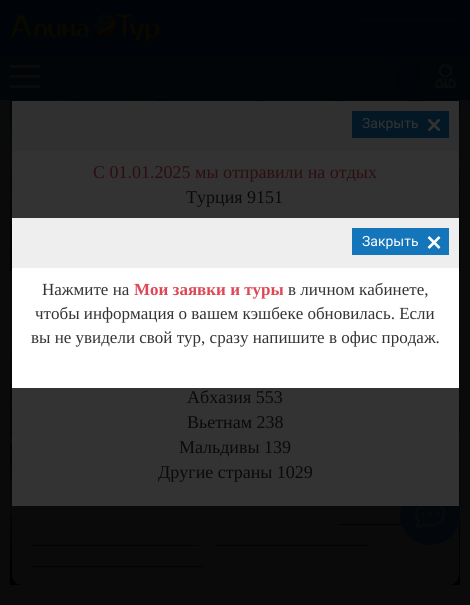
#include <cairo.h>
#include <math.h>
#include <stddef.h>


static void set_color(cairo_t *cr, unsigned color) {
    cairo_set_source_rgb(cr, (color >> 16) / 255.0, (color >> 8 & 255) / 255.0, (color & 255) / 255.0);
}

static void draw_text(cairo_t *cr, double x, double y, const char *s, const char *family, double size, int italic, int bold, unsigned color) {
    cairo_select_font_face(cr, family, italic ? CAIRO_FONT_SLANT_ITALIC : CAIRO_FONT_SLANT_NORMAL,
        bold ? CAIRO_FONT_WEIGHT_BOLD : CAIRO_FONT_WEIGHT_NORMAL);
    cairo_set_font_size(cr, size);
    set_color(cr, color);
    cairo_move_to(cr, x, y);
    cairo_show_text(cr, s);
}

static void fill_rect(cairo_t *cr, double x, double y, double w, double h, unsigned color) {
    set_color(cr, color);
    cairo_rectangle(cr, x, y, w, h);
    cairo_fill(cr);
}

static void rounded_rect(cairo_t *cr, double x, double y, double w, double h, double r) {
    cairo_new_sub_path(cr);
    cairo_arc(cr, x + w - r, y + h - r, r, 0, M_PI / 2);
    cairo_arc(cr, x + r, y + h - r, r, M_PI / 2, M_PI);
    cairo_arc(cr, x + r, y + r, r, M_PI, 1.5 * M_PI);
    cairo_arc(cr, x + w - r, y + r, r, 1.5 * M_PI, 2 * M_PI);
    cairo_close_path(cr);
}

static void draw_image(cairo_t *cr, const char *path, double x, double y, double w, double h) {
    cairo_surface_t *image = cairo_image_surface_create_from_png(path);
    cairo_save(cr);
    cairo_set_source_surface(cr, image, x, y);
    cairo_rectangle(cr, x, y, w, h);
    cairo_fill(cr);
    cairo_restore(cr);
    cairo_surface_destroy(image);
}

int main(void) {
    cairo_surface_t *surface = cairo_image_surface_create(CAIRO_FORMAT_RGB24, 470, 605);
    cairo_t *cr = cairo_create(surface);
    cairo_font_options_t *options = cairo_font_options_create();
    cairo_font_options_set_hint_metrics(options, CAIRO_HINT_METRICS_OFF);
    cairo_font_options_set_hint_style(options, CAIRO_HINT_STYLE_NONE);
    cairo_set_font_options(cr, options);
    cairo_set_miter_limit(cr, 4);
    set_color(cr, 0x0A0A0A);
    cairo_paint(cr);
    fill_rect(cr, 0, 0, 470, 55, 0x000307);
    fill_rect(cr, 0, 55, 470, 45, 0x010507);
    draw_image(cr, "assets/img1.png", 10, 14, 150, 28);
    cairo_new_path(cr);
    cairo_move_to(cr, 357, 19.5);
    cairo_line_to(cr, 460, 19.5);
    set_color(cr, 0x0A0900);
    cairo_set_line_width(cr, 1);
    cairo_set_dash(cr, (double[]){1, 1}, 2, 0);
    cairo_stroke(cr);
    fill_rect(cr, 10, 65, 30, 3, 0x0A0A0A);
    fill_rect(cr, 10, 75, 30, 3, 0x0A0A0A);
    fill_rect(cr, 10, 85, 30, 3, 0x0A0A0A);
    draw_image(cr, "assets/img2.png", 390, 62, 31, 28);
    draw_image(cr, "assets/img3.png", 435, 64, 21, 24);
    draw_image(cr, "assets/img4.png", 10, 100, 450, 171);
    draw_image(cr, "assets/img5.png", 10, 332, 450, 253);
    rounded_rect(cr, 12, 451, 447, 134, 10);
    cairo_fill(cr);
    fill_rect(cr, 339, 524, 70, 1, 0x000307);
    set_color(cr, 0x03060A);
    cairo_arc(cr, 430, 515, 30, 0, 2 * M_PI);
    cairo_fill(cr);
    fill_rect(cr, 12, 151, 447, 355, 0x333333);
    fill_rect(cr, 12, 101, 447, 50, 0x303030);
    fill_rect(cr, 352, 111, 97, 27, 0x041725);
    draw_text(cr, 362, 128, "Закрыть", "Roboto", 14, 0, 0, 0x333333);
    draw_image(cr, "assets/img6.png", 427, 118, 14, 14);
    draw_text(cr, 93, 178, "С 01.01.2025 мы отправили на отдых", "Liberation Serif", 18, 0, 0, 0x2C0E11);
    draw_text(cr, 186, 203, "Турция 9151", "Liberation Serif", 18, 0, 0, 0x0A0A0A);
    draw_text(cr, 187, 403, "Абхазия 553", "Liberation Serif", 18, 0, 0, 0x0A0A0A);
    draw_text(cr, 187, 428, "Вьетнам 238", "Liberation Serif", 18, 0, 0, 0x0A0A0A);
    draw_text(cr, 179, 453, "Мальдивы 139", "Liberation Serif", 18, 0, 0, 0x0A0A0A);
    draw_text(cr, 158, 478, "Другие страны 1029", "Liberation Serif", 18, 0, 0, 0x0A0A0A);
    fill_rect(cr, 12, 268, 447, 120, 0xFFFFFF);
    fill_rect(cr, 12, 218, 447, 50, 0xEEEEEE);
    fill_rect(cr, 352, 228, 97, 27, 0x1475BA);
    draw_text(cr, 362, 246, "Закрыть", "Roboto", 14, 0, 0, 0xFFFFFF);
    draw_image(cr, "assets/img7.png", 427, 236, 14, 13);
    draw_text(cr, 42, 295, "Нажмите на", "Liberation Serif", 17, 0, 0, 0x333333);
    draw_text(cr, 134, 295, "Мои заявки и туры", "Liberation Serif", 17, 0, 1, 0xDE4756);
    draw_text(cr, 288, 295, "в личном кабинете,", "Liberation Serif", 17, 0, 0, 0x333333);
    draw_text(cr, 35, 319, "чтобы информация о вашем кэшбеке обновилась. Если", "Liberation Serif", 17, 0, 0, 0x333333);
    draw_text(cr, 31, 343, "вы не увидели свой тур, сразу напишите в офис продаж.", "Liberation Serif", 17, 0, 0, 0x333333);
    fill_rect(cr, 32, 545, 167, 1, 0x000307);
    fill_rect(cr, 216, 545, 153, 1, 0x000307);
    fill_rect(cr, 32, 566, 171, 1, 0x000307);
    draw_image(cr, "assets/img8.png", 415, 506, 31, 22);
    cairo_surface_write_to_png(surface, "output.png");
    cairo_font_options_destroy(options);
    cairo_destroy(cr);
    cairo_surface_destroy(surface);
    return 0;
}
